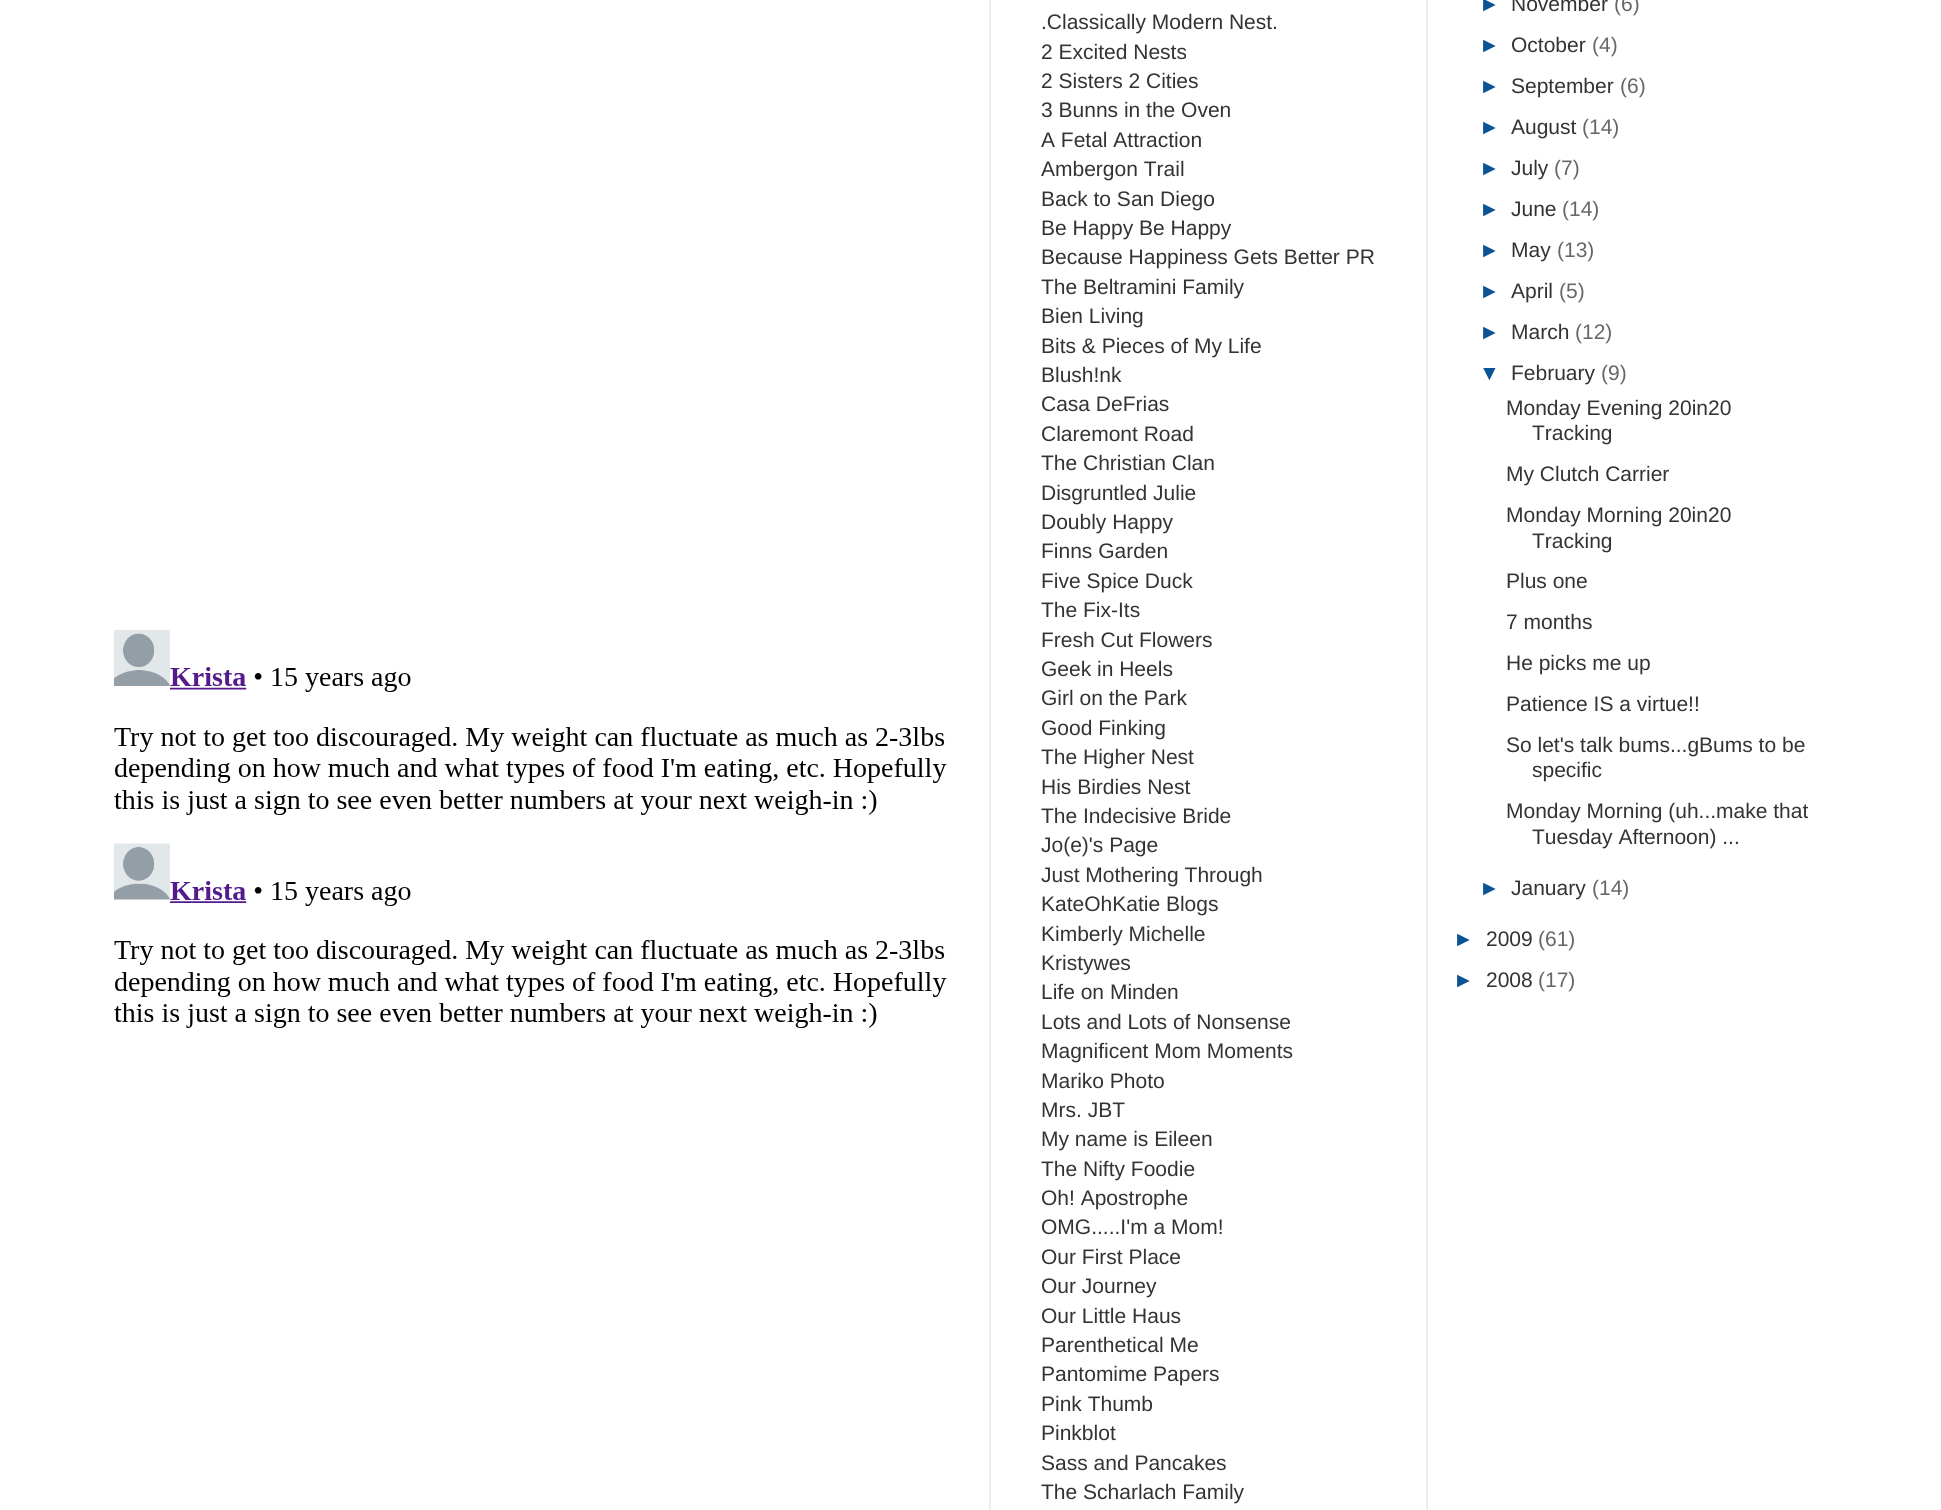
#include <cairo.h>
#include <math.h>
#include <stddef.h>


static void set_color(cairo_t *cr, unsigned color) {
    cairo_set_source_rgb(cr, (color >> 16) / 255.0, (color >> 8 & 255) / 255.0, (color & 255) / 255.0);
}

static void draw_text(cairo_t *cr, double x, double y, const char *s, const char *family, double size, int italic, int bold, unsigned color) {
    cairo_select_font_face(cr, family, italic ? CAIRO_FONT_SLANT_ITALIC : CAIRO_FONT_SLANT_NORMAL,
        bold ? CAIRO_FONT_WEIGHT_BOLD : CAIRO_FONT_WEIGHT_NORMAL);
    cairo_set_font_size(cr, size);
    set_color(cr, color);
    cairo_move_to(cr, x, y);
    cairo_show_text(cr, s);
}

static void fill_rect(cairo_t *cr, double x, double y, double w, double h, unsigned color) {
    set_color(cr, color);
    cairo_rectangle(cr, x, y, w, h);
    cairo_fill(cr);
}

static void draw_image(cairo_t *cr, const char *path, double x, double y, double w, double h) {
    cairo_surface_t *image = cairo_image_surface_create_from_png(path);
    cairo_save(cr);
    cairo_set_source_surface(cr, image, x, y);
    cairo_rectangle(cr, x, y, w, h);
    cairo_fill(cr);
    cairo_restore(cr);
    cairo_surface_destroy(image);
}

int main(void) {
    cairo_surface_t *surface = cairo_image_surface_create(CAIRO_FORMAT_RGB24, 1941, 1510);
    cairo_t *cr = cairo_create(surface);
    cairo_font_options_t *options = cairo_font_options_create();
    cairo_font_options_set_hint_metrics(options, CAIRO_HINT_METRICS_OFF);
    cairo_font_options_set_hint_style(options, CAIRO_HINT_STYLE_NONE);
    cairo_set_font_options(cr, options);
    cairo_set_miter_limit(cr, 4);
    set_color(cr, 0xFFFFFF);
    cairo_paint(cr);
    fill_rect(cr, 989, 0, 2, 1510, 0xEEEEEE);
    draw_image(cr, "assets/img1.png", 114, 630, 833, 398);
    draw_text(cr, 1041, 29, ".Classically Modern Nest.", "Liberation Sans", 21, 0, 0, 0x333333);
    draw_text(cr, 1041, 59, "2 Excited Nests", "Liberation Sans", 21, 0, 0, 0x333333);
    draw_text(cr, 1041, 88, "2 Sisters 2 Cities", "Liberation Sans", 21, 0, 0, 0x333333);
    draw_text(cr, 1041, 117, "3 Bunns in the Oven", "Liberation Sans", 21, 0, 0, 0x333333);
    draw_text(cr, 1041, 147, "A Fetal Attraction", "Liberation Sans", 21, 0, 0, 0x333333);
    draw_text(cr, 1041, 176, "Ambergon Trail", "Liberation Sans", 21, 0, 0, 0x333333);
    draw_text(cr, 1041, 206, "Back to San Diego", "Liberation Sans", 21, 0, 0, 0x333333);
    draw_text(cr, 1041, 235, "Be Happy Be Happy", "Liberation Sans", 21, 0, 0, 0x333333);
    draw_text(cr, 1041, 264, "Because Happiness Gets Better PR", "Liberation Sans", 21, 0, 0, 0x333333);
    draw_text(cr, 1041, 294, "The Beltramini Family", "Liberation Sans", 21, 0, 0, 0x333333);
    draw_text(cr, 1041, 323, "Bien Living", "Liberation Sans", 21, 0, 0, 0x333333);
    draw_text(cr, 1041, 353, "Bits & Pieces of My Life", "Liberation Sans", 21, 0, 0, 0x333333);
    draw_text(cr, 1041, 382, "Blush!nk", "Liberation Sans", 21, 0, 0, 0x333333);
    draw_text(cr, 1041, 411, "Casa DeFrias", "Liberation Sans", 21, 0, 0, 0x333333);
    draw_text(cr, 1041, 441, "Claremont Road", "Liberation Sans", 21, 0, 0, 0x333333);
    draw_text(cr, 1041, 470, "The Christian Clan", "Liberation Sans", 21, 0, 0, 0x333333);
    draw_text(cr, 1041, 500, "Disgruntled Julie", "Liberation Sans", 21, 0, 0, 0x333333);
    draw_text(cr, 1041, 529, "Doubly Happy", "Liberation Sans", 21, 0, 0, 0x333333);
    draw_text(cr, 1041, 558, "Finns Garden", "Liberation Sans", 21, 0, 0, 0x333333);
    draw_text(cr, 1041, 588, "Five Spice Duck", "Liberation Sans", 21, 0, 0, 0x333333);
    draw_text(cr, 1041, 617, "The Fix-Its", "Liberation Sans", 21, 0, 0, 0x333333);
    draw_text(cr, 1041, 647, "Fresh Cut Flowers", "Liberation Sans", 21, 0, 0, 0x333333);
    draw_text(cr, 1041, 676, "Geek in Heels", "Liberation Sans", 21, 0, 0, 0x333333);
    draw_text(cr, 1041, 705, "Girl on the Park", "Liberation Sans", 21, 0, 0, 0x333333);
    draw_text(cr, 1041, 735, "Good Finking", "Liberation Sans", 21, 0, 0, 0x333333);
    draw_text(cr, 1041, 764, "The Higher Nest", "Liberation Sans", 21, 0, 0, 0x333333);
    draw_text(cr, 1041, 794, "His Birdies Nest", "Liberation Sans", 21, 0, 0, 0x333333);
    draw_text(cr, 1041, 823, "The Indecisive Bride", "Liberation Sans", 21, 0, 0, 0x333333);
    draw_text(cr, 1041, 852, "Jo(e)'s Page", "Liberation Sans", 21, 0, 0, 0x333333);
    draw_text(cr, 1041, 882, "Just Mothering Through", "Liberation Sans", 21, 0, 0, 0x333333);
    draw_text(cr, 1041, 911, "KateOhKatie Blogs", "Liberation Sans", 21, 0, 0, 0x333333);
    draw_text(cr, 1041, 941, "Kimberly Michelle", "Liberation Sans", 21, 0, 0, 0x333333);
    draw_text(cr, 1041, 970, "Kristywes", "Liberation Sans", 21, 0, 0, 0x333333);
    draw_text(cr, 1041, 999, "Life on Minden", "Liberation Sans", 21, 0, 0, 0x333333);
    draw_text(cr, 1041, 1029, "Lots and Lots of Nonsense", "Liberation Sans", 21, 0, 0, 0x333333);
    draw_text(cr, 1041, 1058, "Magnificent Mom Moments", "Liberation Sans", 21, 0, 0, 0x333333);
    draw_text(cr, 1041, 1088, "Mariko Photo", "Liberation Sans", 21, 0, 0, 0x333333);
    draw_text(cr, 1041, 1117, "Mrs. JBT", "Liberation Sans", 21, 0, 0, 0x333333);
    draw_text(cr, 1041, 1146, "My name is Eileen", "Liberation Sans", 21, 0, 0, 0x333333);
    draw_text(cr, 1041, 1176, "The Nifty Foodie", "Liberation Sans", 21, 0, 0, 0x333333);
    draw_text(cr, 1041, 1205, "Oh! Apostrophe", "Liberation Sans", 21, 0, 0, 0x333333);
    draw_text(cr, 1041, 1234, "OMG.....I'm a Mom!", "Liberation Sans", 21, 0, 0, 0x333333);
    draw_text(cr, 1041, 1264, "Our First Place", "Liberation Sans", 21, 0, 0, 0x333333);
    draw_text(cr, 1041, 1293, "Our Journey", "Liberation Sans", 21, 0, 0, 0x333333);
    draw_text(cr, 1041, 1323, "Our Little Haus", "Liberation Sans", 21, 0, 0, 0x333333);
    draw_text(cr, 1041, 1352, "Parenthetical Me", "Liberation Sans", 21, 0, 0, 0x333333);
    draw_text(cr, 1041, 1381, "Pantomime Papers", "Liberation Sans", 21, 0, 0, 0x333333);
    draw_text(cr, 1041, 1411, "Pink Thumb", "Liberation Sans", 21, 0, 0, 0x333333);
    draw_text(cr, 1041, 1440, "Pinkblot", "Liberation Sans", 21, 0, 0, 0x333333);
    draw_text(cr, 1041, 1470, "Sass and Pancakes", "Liberation Sans", 21, 0, 0, 0x333333);
    draw_text(cr, 1041, 1499, "The Scharlach Family", "Liberation Sans", 21, 0, 0, 0x333333);
    fill_rect(cr, 1426, 0, 2, 1510, 0xEEEEEE);
    draw_text(cr, 1479, 11, "►", "Liberation Sans", 21, 0, 0, 0x0B5394);
    draw_text(cr, 1511, 11, "November", "Liberation Sans", 21, 0, 0, 0x333333);
    draw_text(cr, 1614, 11, "(6)", "Liberation Sans", 21, 0, 0, 0x666666);
    draw_text(cr, 1479, 52, "►", "Liberation Sans", 21, 0, 0, 0x0B5394);
    draw_text(cr, 1511, 52, "October", "Liberation Sans", 21, 0, 0, 0x333333);
    draw_text(cr, 1592, 52, "(4)", "Liberation Sans", 21, 0, 0, 0x666666);
    draw_text(cr, 1479, 93, "►", "Liberation Sans", 21, 0, 0, 0x0B5394);
    draw_text(cr, 1511, 93, "September", "Liberation Sans", 21, 0, 0, 0x333333);
    draw_text(cr, 1620, 93, "(6)", "Liberation Sans", 21, 0, 0, 0x666666);
    draw_text(cr, 1479, 134, "►", "Liberation Sans", 21, 0, 0, 0x0B5394);
    draw_text(cr, 1511, 134, "August", "Liberation Sans", 21, 0, 0, 0x333333);
    draw_text(cr, 1582, 134, "(14)", "Liberation Sans", 21, 0, 0, 0x666666);
    draw_text(cr, 1479, 175, "►", "Liberation Sans", 21, 0, 0, 0x0B5394);
    draw_text(cr, 1511, 175, "July", "Liberation Sans", 21, 0, 0, 0x333333);
    draw_text(cr, 1554, 175, "(7)", "Liberation Sans", 21, 0, 0, 0x666666);
    draw_text(cr, 1479, 216, "►", "Liberation Sans", 21, 0, 0, 0x0B5394);
    draw_text(cr, 1511, 216, "June", "Liberation Sans", 21, 0, 0, 0x333333);
    draw_text(cr, 1562, 216, "(14)", "Liberation Sans", 21, 0, 0, 0x666666);
    draw_text(cr, 1479, 257, "►", "Liberation Sans", 21, 0, 0, 0x0B5394);
    draw_text(cr, 1511, 257, "May", "Liberation Sans", 21, 0, 0, 0x333333);
    draw_text(cr, 1557, 257, "(13)", "Liberation Sans", 21, 0, 0, 0x666666);
    draw_text(cr, 1479, 298, "►", "Liberation Sans", 21, 0, 0, 0x0B5394);
    draw_text(cr, 1511, 298, "April", "Liberation Sans", 21, 0, 0, 0x333333);
    draw_text(cr, 1559, 298, "(5)", "Liberation Sans", 21, 0, 0, 0x666666);
    draw_text(cr, 1479, 339, "►", "Liberation Sans", 21, 0, 0, 0x0B5394);
    draw_text(cr, 1511, 339, "March", "Liberation Sans", 21, 0, 0, 0x333333);
    draw_text(cr, 1575, 339, "(12)", "Liberation Sans", 21, 0, 0, 0x666666);
    draw_text(cr, 1479, 380, "▼", "Liberation Sans", 21, 0, 0, 0x0B5394);
    draw_text(cr, 1511, 380, "February", "Liberation Sans", 21, 0, 0, 0x333333);
    draw_text(cr, 1601, 380, "(9)", "Liberation Sans", 21, 0, 0, 0x666666);
    draw_text(cr, 1506, 415, "Monday Evening 20in20", "Liberation Sans", 21, 0, 0, 0x333333);
    draw_text(cr, 1532, 440, "Tracking", "Liberation Sans", 21, 0, 0, 0x333333);
    draw_text(cr, 1506, 481, "My Clutch Carrier", "Liberation Sans", 21, 0, 0, 0x333333);
    draw_text(cr, 1506, 522, "Monday Morning 20in20", "Liberation Sans", 21, 0, 0, 0x333333);
    draw_text(cr, 1532, 548, "Tracking", "Liberation Sans", 21, 0, 0, 0x333333);
    draw_text(cr, 1506, 588, "Plus one", "Liberation Sans", 21, 0, 0, 0x333333);
    draw_text(cr, 1506, 629, "7 months", "Liberation Sans", 21, 0, 0, 0x333333);
    draw_text(cr, 1506, 670, "He picks me up", "Liberation Sans", 21, 0, 0, 0x333333);
    draw_text(cr, 1506, 711, "Patience IS a virtue!!", "Liberation Sans", 21, 0, 0, 0x333333);
    draw_text(cr, 1506, 752, "So let's talk bums...gBums to be", "Liberation Sans", 21, 0, 0, 0x333333);
    draw_text(cr, 1532, 777, "specific", "Liberation Sans", 21, 0, 0, 0x333333);
    draw_text(cr, 1506, 818, "Monday Morning (uh...make that", "Liberation Sans", 21, 0, 0, 0x333333);
    draw_text(cr, 1532, 844, "Tuesday Afternoon) ...", "Liberation Sans", 21, 0, 0, 0x333333);
    draw_text(cr, 1479, 895, "►", "Liberation Sans", 21, 0, 0, 0x0B5394);
    draw_text(cr, 1511, 895, "January", "Liberation Sans", 21, 0, 0, 0x333333);
    draw_text(cr, 1592, 895, "(14)", "Liberation Sans", 21, 0, 0, 0x666666);
    draw_text(cr, 1453, 946, "►", "Liberation Sans", 21, 0, 0, 0x0B5394);
    draw_text(cr, 1486, 946, "2009", "Liberation Sans", 21, 0, 0, 0x333333);
    draw_text(cr, 1538, 946, "(61)", "Liberation Sans", 21, 0, 0, 0x666666);
    draw_text(cr, 1453, 987, "►", "Liberation Sans", 21, 0, 0, 0x0B5394);
    draw_text(cr, 1486, 987, "2008", "Liberation Sans", 21, 0, 0, 0x333333);
    draw_text(cr, 1538, 987, "(17)", "Liberation Sans", 21, 0, 0, 0x666666);
    cairo_surface_write_to_png(surface, "output.png");
    cairo_font_options_destroy(options);
    cairo_destroy(cr);
    cairo_surface_destroy(surface);
    return 0;
}
